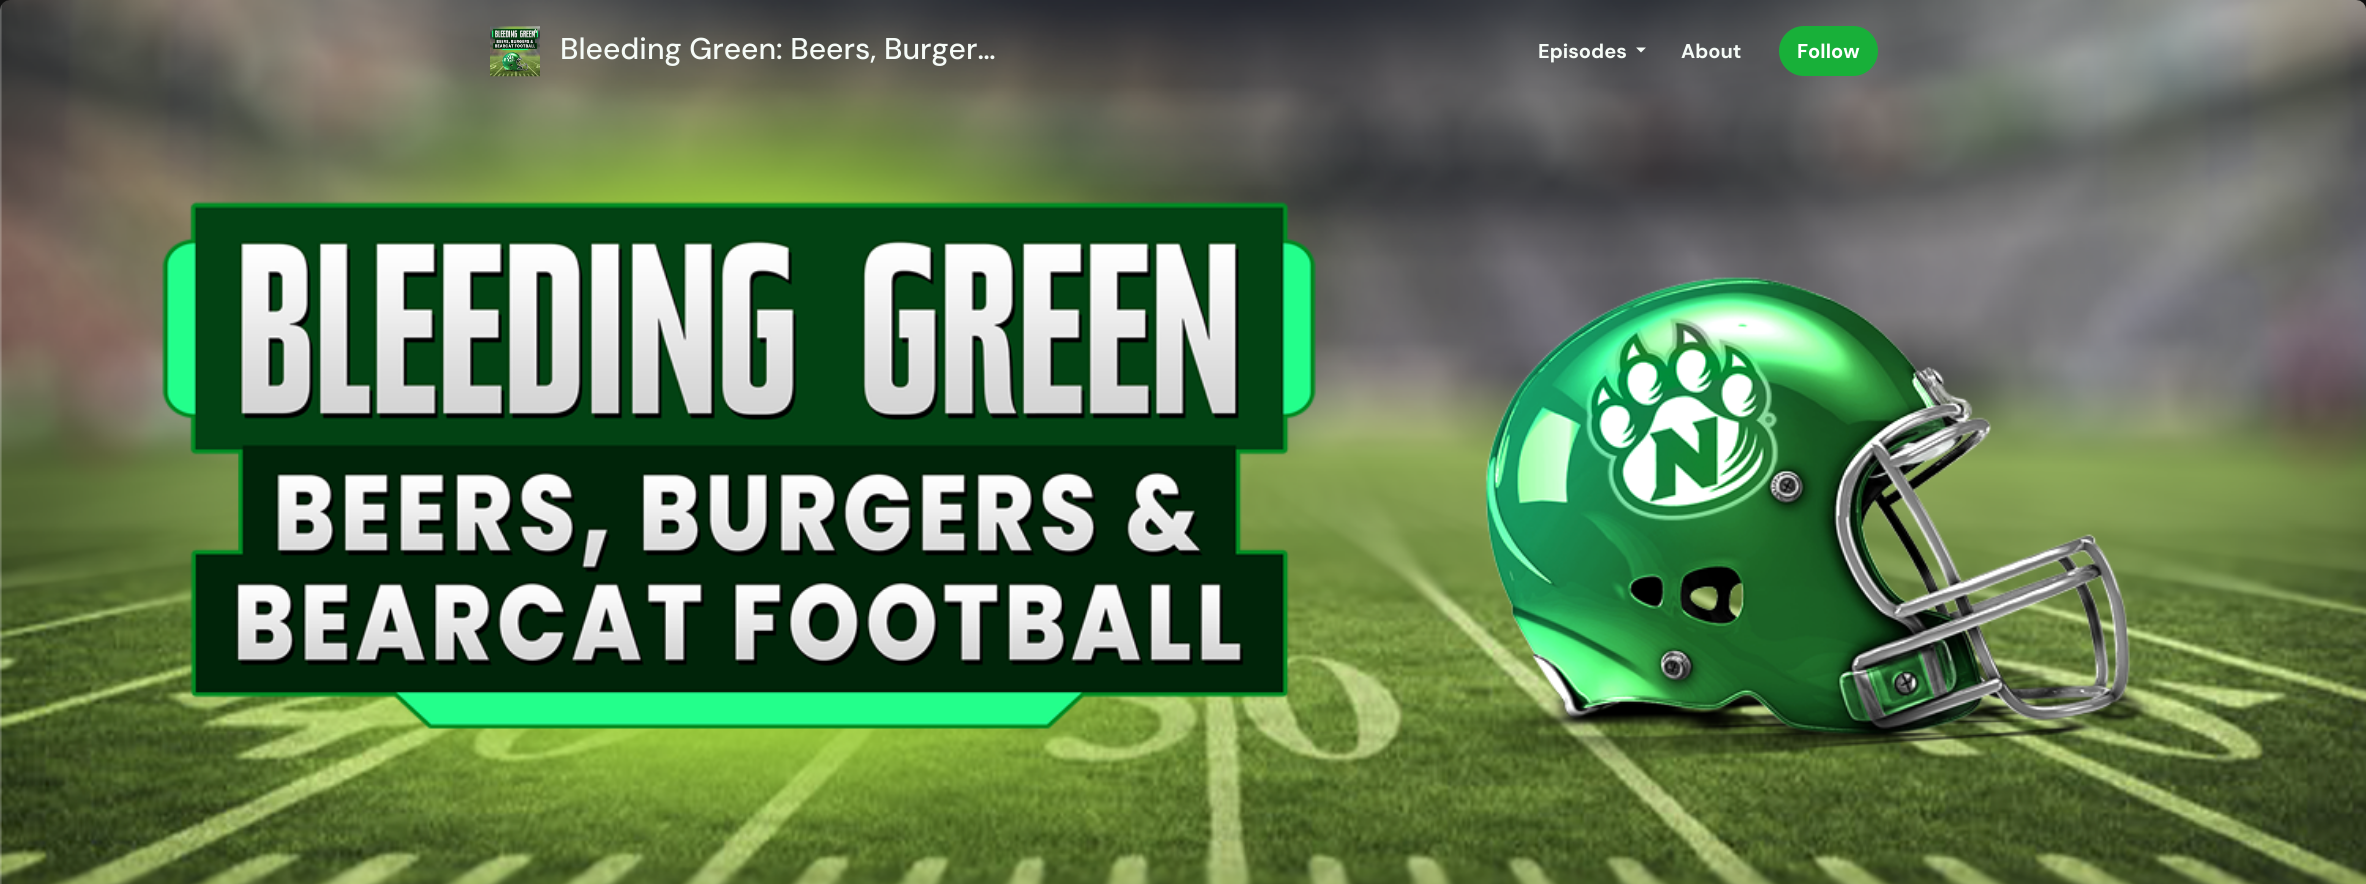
#include <cairo.h>
#include <math.h>
#include <stddef.h>


static void set_color(cairo_t *cr, unsigned color) {
    cairo_set_source_rgb(cr, (color >> 16) / 255.0, (color >> 8 & 255) / 255.0, (color & 255) / 255.0);
}

static void draw_text(cairo_t *cr, double x, double y, const char *s, const char *family, double size, int italic, int bold, unsigned color) {
    cairo_select_font_face(cr, family, italic ? CAIRO_FONT_SLANT_ITALIC : CAIRO_FONT_SLANT_NORMAL,
        bold ? CAIRO_FONT_WEIGHT_BOLD : CAIRO_FONT_WEIGHT_NORMAL);
    cairo_set_font_size(cr, size);
    set_color(cr, color);
    cairo_move_to(cr, x, y);
    cairo_show_text(cr, s);
}

static void rounded_rect(cairo_t *cr, double x, double y, double w, double h, double r) {
    cairo_new_sub_path(cr);
    cairo_arc(cr, x + w - r, y + h - r, r, 0, M_PI / 2);
    cairo_arc(cr, x + r, y + h - r, r, M_PI / 2, M_PI);
    cairo_arc(cr, x + r, y + r, r, M_PI, 1.5 * M_PI);
    cairo_arc(cr, x + w - r, y + r, r, 1.5 * M_PI, 2 * M_PI);
    cairo_close_path(cr);
}

static void draw_image(cairo_t *cr, const char *path, double x, double y, double w, double h) {
    cairo_surface_t *image = cairo_image_surface_create_from_png(path);
    cairo_save(cr);
    cairo_set_source_surface(cr, image, x, y);
    cairo_rectangle(cr, x, y, w, h);
    cairo_fill(cr);
    cairo_restore(cr);
    cairo_surface_destroy(image);
}

int main(void) {
    cairo_surface_t *surface = cairo_image_surface_create(CAIRO_FORMAT_RGB24, 2366, 884);
    cairo_t *cr = cairo_create(surface);
    cairo_font_options_t *options = cairo_font_options_create();
    cairo_font_options_set_hint_metrics(options, CAIRO_HINT_METRICS_OFF);
    cairo_font_options_set_hint_style(options, CAIRO_HINT_STYLE_NONE);
    cairo_set_font_options(cr, options);
    cairo_set_miter_limit(cr, 4);
    set_color(cr, 0x111111);
    cairo_paint(cr);
    draw_image(cr, "assets/img1.png", 0, 0, 2366, 884);
    draw_image(cr, "assets/img2.png", 490, 26, 50, 51);
    draw_text(cr, 560, 59, "Bleeding Green: Beers, Burger…", "DM Sans Medium", 30, 0, 0, 0xF5FBF7);
    draw_text(cr, 1538, 58, "Episodes", "DM Sans", 20, 0, 1, 0xF5FBF7);
    cairo_new_path(cr);
    cairo_move_to(cr, 1636, 47.5);
    cairo_line_to(cr, 1646, 47.5);
    cairo_line_to(cr, 1641, 52.5);
    cairo_close_path(cr);
    cairo_fill(cr);
    draw_text(cr, 1681, 58, "About", "DM Sans", 20, 0, 1, 0xF5FBF7);
    set_color(cr, 0x18B039);
    rounded_rect(cr, 1779, 26, 99, 50, 25);
    cairo_fill(cr);
    draw_text(cr, 1797, 58, "Follow", "DM Sans", 20, 0, 1, 0xFFFFFF);
    cairo_surface_write_to_png(surface, "output.png");
    cairo_font_options_destroy(options);
    cairo_destroy(cr);
    cairo_surface_destroy(surface);
    return 0;
}
